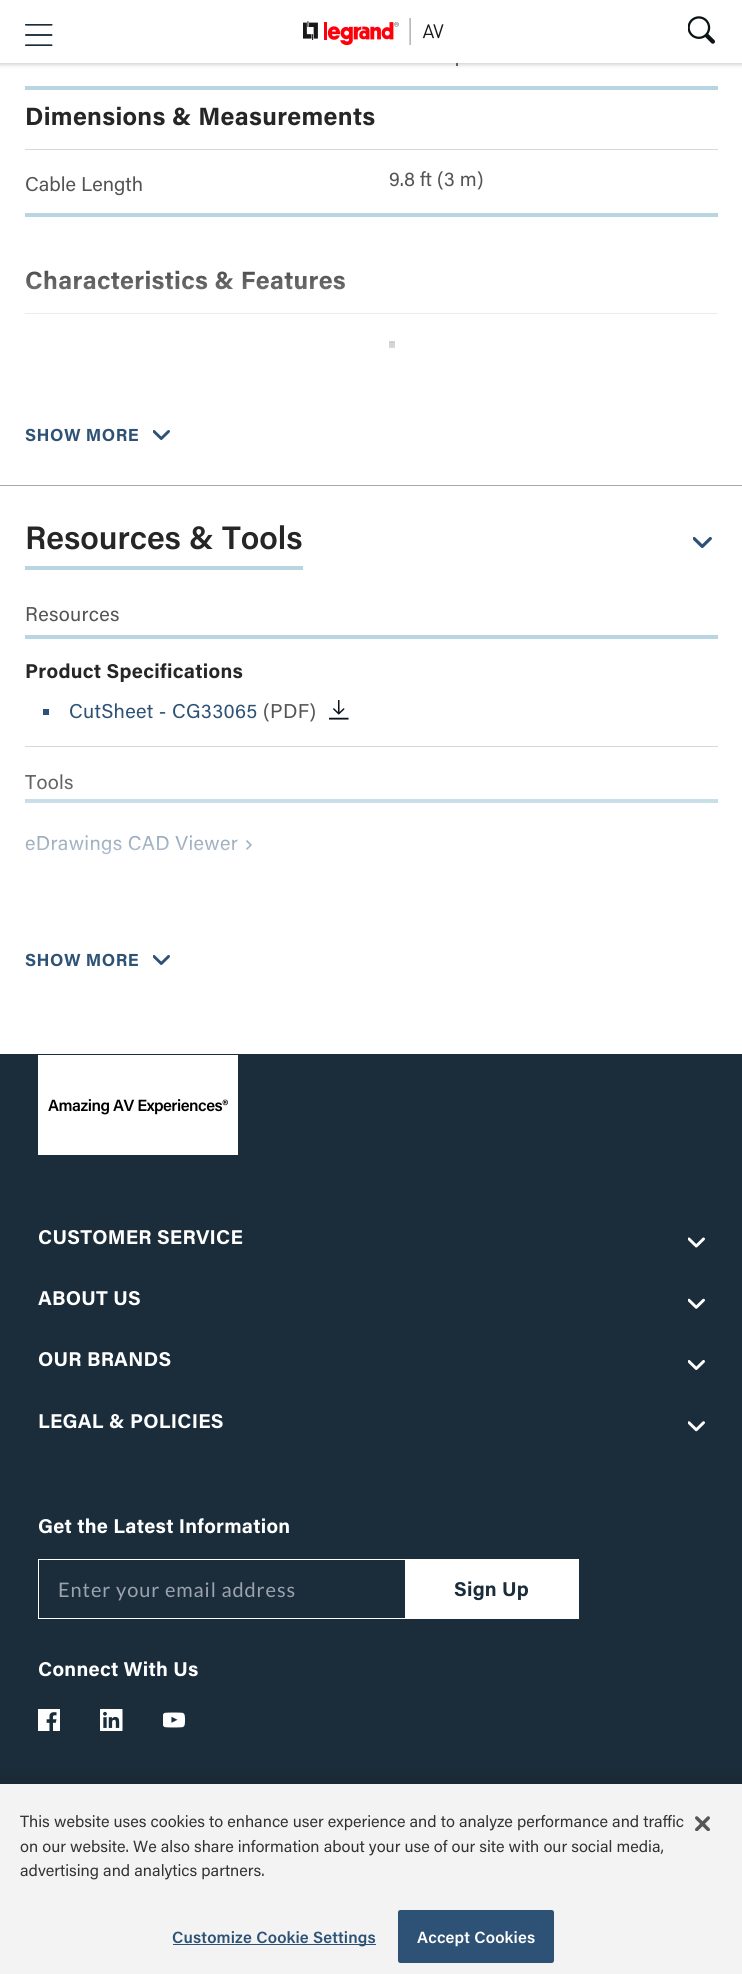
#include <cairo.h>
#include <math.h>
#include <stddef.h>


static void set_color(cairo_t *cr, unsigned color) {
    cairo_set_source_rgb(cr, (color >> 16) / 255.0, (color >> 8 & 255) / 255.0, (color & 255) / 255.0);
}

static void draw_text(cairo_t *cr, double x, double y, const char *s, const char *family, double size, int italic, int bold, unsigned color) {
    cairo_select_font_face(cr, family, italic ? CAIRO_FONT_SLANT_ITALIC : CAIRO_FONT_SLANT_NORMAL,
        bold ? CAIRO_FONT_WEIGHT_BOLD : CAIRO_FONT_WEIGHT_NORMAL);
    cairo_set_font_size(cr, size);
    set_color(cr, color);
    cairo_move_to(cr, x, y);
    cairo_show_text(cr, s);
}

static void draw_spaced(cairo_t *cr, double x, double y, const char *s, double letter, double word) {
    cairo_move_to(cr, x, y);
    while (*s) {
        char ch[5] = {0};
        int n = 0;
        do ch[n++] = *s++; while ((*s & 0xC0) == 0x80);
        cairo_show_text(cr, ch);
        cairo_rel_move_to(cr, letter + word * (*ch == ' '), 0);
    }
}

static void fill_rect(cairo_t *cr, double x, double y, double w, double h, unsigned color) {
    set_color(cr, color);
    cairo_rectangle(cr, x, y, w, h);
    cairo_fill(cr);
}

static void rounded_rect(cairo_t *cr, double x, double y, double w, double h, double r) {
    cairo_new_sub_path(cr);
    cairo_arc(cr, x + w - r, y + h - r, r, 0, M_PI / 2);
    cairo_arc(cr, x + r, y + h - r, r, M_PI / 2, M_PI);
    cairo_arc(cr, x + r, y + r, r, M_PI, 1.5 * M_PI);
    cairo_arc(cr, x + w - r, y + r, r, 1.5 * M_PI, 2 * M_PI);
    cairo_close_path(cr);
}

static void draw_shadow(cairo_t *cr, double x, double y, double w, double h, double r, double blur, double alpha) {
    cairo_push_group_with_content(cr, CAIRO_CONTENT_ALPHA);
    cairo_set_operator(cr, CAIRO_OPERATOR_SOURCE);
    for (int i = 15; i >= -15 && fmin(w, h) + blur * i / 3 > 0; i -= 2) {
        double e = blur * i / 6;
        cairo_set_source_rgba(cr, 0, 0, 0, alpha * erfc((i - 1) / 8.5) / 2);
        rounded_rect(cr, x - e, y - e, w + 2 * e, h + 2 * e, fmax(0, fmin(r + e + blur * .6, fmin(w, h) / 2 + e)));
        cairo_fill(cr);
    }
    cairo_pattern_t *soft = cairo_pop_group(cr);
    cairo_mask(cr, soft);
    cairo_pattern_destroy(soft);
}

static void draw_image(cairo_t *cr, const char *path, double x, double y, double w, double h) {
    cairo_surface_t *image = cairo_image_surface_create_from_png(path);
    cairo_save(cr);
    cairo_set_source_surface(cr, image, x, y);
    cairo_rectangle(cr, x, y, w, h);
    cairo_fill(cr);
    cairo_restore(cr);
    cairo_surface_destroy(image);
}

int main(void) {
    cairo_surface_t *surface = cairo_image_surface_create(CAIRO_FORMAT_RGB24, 742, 1974);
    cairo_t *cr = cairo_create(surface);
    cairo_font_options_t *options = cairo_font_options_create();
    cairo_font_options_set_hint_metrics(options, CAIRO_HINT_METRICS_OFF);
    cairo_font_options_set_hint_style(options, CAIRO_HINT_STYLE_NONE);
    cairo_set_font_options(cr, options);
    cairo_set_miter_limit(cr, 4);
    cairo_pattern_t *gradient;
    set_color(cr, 0xFFFFFF);
    cairo_paint(cr);
    set_color(cr, 0x26292C);
    draw_shadow(cr, -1, 0, 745, 65, 0, 2, 0.2);
    fill_rect(cr, 0, 0, 742, 63, 0xFFFFFF);
    draw_image(cr, "assets/img1.png", 25, 24, 28, 22);
    draw_image(cr, "assets/img2.png", 303, 18, 141, 27);
    draw_image(cr, "assets/img3.png", 688, 16, 27, 28);
    cairo_select_font_face(cr, "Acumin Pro", CAIRO_FONT_SLANT_NORMAL, CAIRO_FONT_WEIGHT_NORMAL);
    cairo_set_font_size(cr, 20);
    set_color(cr, 0x545454);
    draw_spaced(cr, 455, 66, ".", 0.25, 0);
    fill_rect(cr, 25, 86, 693, 4, 0xB7D6E1);
    fill_rect(cr, 25, 213, 693, 4, 0xB7D6E1);
    fill_rect(cr, 25, 149, 693, 1, 0xD8D8D8);
    cairo_select_font_face(cr, "Acumin Pro", CAIRO_FONT_SLANT_NORMAL, CAIRO_FONT_WEIGHT_BOLD);
    cairo_set_font_size(cr, 25);
    set_color(cr, 0x262626);
    draw_spaced(cr, 25, 125, "Dimensions & Measurements", 0.3, 0);
    draw_text(cr, 25, 191, "Cable Length", "Acumin Pro", 20, 0, 0, 0x545454);
    draw_text(cr, 389, 186, "9.8 ft (3 m)", "Acumin Pro", 20, 0, 0, 0x545454);
    fill_rect(cr, 25, 313, 693, 1, 0xD8D8D8);
    cairo_select_font_face(cr, "Acumin Pro", CAIRO_FONT_SLANT_NORMAL, CAIRO_FONT_WEIGHT_BOLD);
    cairo_set_font_size(cr, 25);
    set_color(cr, 0x262626);
    draw_spaced(cr, 25, 289, "Characteristics & Features", 0.3, 0);
    fill_rect(cr, 389, 341, 6, 7, 0x545454);
    gradient = cairo_pattern_create_linear(371, 246, 371, 421);
    cairo_pattern_add_color_stop_rgba(gradient, 0, 1, 1, 1, 0);
    cairo_pattern_add_color_stop_rgba(gradient, 0.75, 1, 1, 1, 1);
    cairo_set_source(cr, gradient);
    cairo_pattern_destroy(gradient);
    cairo_rectangle(cr, 25, 270, 693, 78);
    cairo_fill(cr);
    cairo_set_font_size(cr, 17.5);
    set_color(cr, 0x2E5276);
    draw_spaced(cr, 25, 441, "SHOW MORE", 0.5, 0);
    draw_image(cr, "assets/img4.png", 153, 430, 17, 10);
    fill_rect(cr, 0, 485, 742, 1, 0xA8A8A8);
    fill_rect(cr, 25, 566, 278, 4, 0xB7D6E1);
    draw_text(cr, 25, 549, "Resources & Tools", "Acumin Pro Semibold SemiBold", 32.5, 0, 0, 0x262626);
    draw_image(cr, "assets/img5.png", 693, 537, 19, 11);
    cairo_select_font_face(cr, "Acumin Pro", CAIRO_FONT_SLANT_NORMAL, CAIRO_FONT_WEIGHT_NORMAL);
    cairo_set_font_size(cr, 20);
    set_color(cr, 0x545454);
    draw_spaced(cr, 25, 621, "Resources", 0.3, 0);
    fill_rect(cr, 25, 635, 693, 4, 0xB7D6E1);
    cairo_select_font_face(cr, "Acumin Pro", CAIRO_FONT_SLANT_NORMAL, CAIRO_FONT_WEIGHT_BOLD);
    set_color(cr, 0x262626);
    draw_spaced(cr, 25, 678, "Product Specifications", 0.3, 0);
    fill_rect(cr, 43, 709, 6, 6, 0x2E5276);
    cairo_select_font_face(cr, "Acumin Pro", CAIRO_FONT_SLANT_NORMAL, CAIRO_FONT_WEIGHT_NORMAL);
    draw_spaced(cr, 69, 718, "CutSheet - CG33065", 0.3, 0);
    set_color(cr, 0x545454);
    draw_spaced(cr, 263, 718, "(PDF)", 0.3, 0);
    draw_image(cr, "assets/img6.png", 329, 700, 20, 20);
    fill_rect(cr, 25, 746, 693, 1, 0xD8D8D8);
    set_color(cr, 0x545454);
    draw_spaced(cr, 25, 789, "Tools", 0.3, 0);
    fill_rect(cr, 25, 799, 693, 4, 0xB7D6E1);
    set_color(cr, 0x2E5276);
    draw_spaced(cr, 25, 850, "eDrawings CAD Viewer", 0.3, 0);
    draw_image(cr, "assets/img7.png", 246, 840, 6, 10);
    gradient = cairo_pattern_create_linear(371, 771, 371, 946);
    cairo_pattern_add_color_stop_rgba(gradient, 0, 1, 1, 1, 0);
    cairo_pattern_add_color_stop_rgba(gradient, 0.75, 1, 1, 1, 1);
    cairo_set_source(cr, gradient);
    cairo_pattern_destroy(gradient);
    cairo_rectangle(cr, 25, 774, 693, 81);
    cairo_fill(cr);
    cairo_select_font_face(cr, "Acumin Pro", CAIRO_FONT_SLANT_NORMAL, CAIRO_FONT_WEIGHT_BOLD);
    cairo_set_font_size(cr, 17.5);
    set_color(cr, 0x2E5276);
    draw_spaced(cr, 25, 966, "SHOW MORE", 0.5, 0);
    draw_image(cr, "assets/img4.png", 153, 955, 17, 10);
    fill_rect(cr, 0, 1054, 742, 730, 0x1B2D3A);
    fill_rect(cr, 38, 1055, 200, 100, 0xFFFFFF);
    cairo_select_font_face(cr, "Acumin Pro Semibold SemiBold", CAIRO_FONT_SLANT_NORMAL, CAIRO_FONT_WEIGHT_NORMAL);
    cairo_set_font_size(cr, 16.25);
    set_color(cr, 0x000000);
    draw_spaced(cr, 48, 1111, "Amazing AV Experiences®", -0.5, 0);
    cairo_select_font_face(cr, "Acumin Pro", CAIRO_FONT_SLANT_NORMAL, CAIRO_FONT_WEIGHT_BOLD);
    cairo_set_font_size(cr, 20);
    set_color(cr, 0xFFFFFF);
    draw_spaced(cr, 38, 1244, "CUSTOMER SERVICE", 0.25, 0);
    draw_image(cr, "assets/img8.png", 688, 1237, 17, 11);
    draw_spaced(cr, 38, 1305, "ABOUT US", 0.25, 0);
    draw_image(cr, "assets/img9.png", 688, 1298, 17, 11);
    draw_spaced(cr, 38, 1366, "OUR BRANDS", 0.25, 0);
    draw_image(cr, "assets/img10.png", 688, 1360, 17, 10);
    draw_spaced(cr, 38, 1428, "LEGAL & POLICIES", 0.25, 0);
    draw_image(cr, "assets/img11.png", 688, 1421, 17, 11);
    draw_spaced(cr, 38, 1533, "Get the Latest Information", 0.25, 0);
    fill_rect(cr, 38, 1559, 367, 1, 0xFFFFFF);
    fill_rect(cr, 38, 1618, 367, 1, 0xFFFFFF);
    fill_rect(cr, 38, 1559, 1, 60, 0xFFFFFF);
    cairo_select_font_face(cr, "Lato", CAIRO_FONT_SLANT_NORMAL, CAIRO_FONT_WEIGHT_NORMAL);
    set_color(cr, 0x9CA3AF);
    draw_spaced(cr, 58, 1597, "Enter your email address", 0.9, 0);
    fill_rect(cr, 405, 1559, 174, 60, 0xFFFFFF);
    cairo_select_font_face(cr, "Acumin Pro", CAIRO_FONT_SLANT_NORMAL, CAIRO_FONT_WEIGHT_BOLD);
    set_color(cr, 0x1B2D3A);
    draw_spaced(cr, 454, 1596, "Sign Up", 0.25, 0);
    set_color(cr, 0xFFFFFF);
    draw_spaced(cr, 38, 1676, "Connect With Us", 0.25, 0);
    draw_image(cr, "assets/img12.png", 38, 1709, 22, 22);
    draw_image(cr, "assets/img13.png", 100, 1709, 23, 22);
    draw_image(cr, "assets/img14.png", 163, 1712, 22, 16);
    set_color(cr, 0x000000);
    draw_shadow(cr, 0, 1784, 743, 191, 0, 11, 0.2);
    fill_rect(cr, 0, 1784, 742, 190, 0xF3F3F3);
    draw_text(cr, 20, 1827, "This website uses cookies to enhance user experience and to analyze performance and traffic", "Acumin Pro", 16.25, 0, 0, 0x333333);
    draw_text(cr, 20, 1852, "on our website. We also share information about your use of our site with our social media,", "Acumin Pro", 16.25, 0, 0, 0x333333);
    draw_text(cr, 20, 1876, "advertising and analytics partners.", "Acumin Pro", 16.25, 0, 0, 0x333333);
    fill_rect(cr, 173, 1944, 203, 1, 0x2E5276);
    cairo_select_font_face(cr, "Acumin Pro Semibold SemiBold", CAIRO_FONT_SLANT_NORMAL, CAIRO_FONT_WEIGHT_NORMAL);
    draw_spaced(cr, 172, 1943, "Customize Cookie Settings", 0.15, 0);
    rounded_rect(cr, 398.5, 1910.5, 155, 52, 2);
    cairo_fill_preserve(cr);
    cairo_set_line_width(cr, 1);
    cairo_stroke(cr);
    set_color(cr, 0xFFFFFF);
    draw_spaced(cr, 417, 1943, "Accept Cookies", 0.15, 0);
    draw_image(cr, "assets/img15.png", 695, 1816, 15, 15);
    cairo_surface_write_to_png(surface, "output.png");
    cairo_font_options_destroy(options);
    cairo_destroy(cr);
    cairo_surface_destroy(surface);
    return 0;
}
